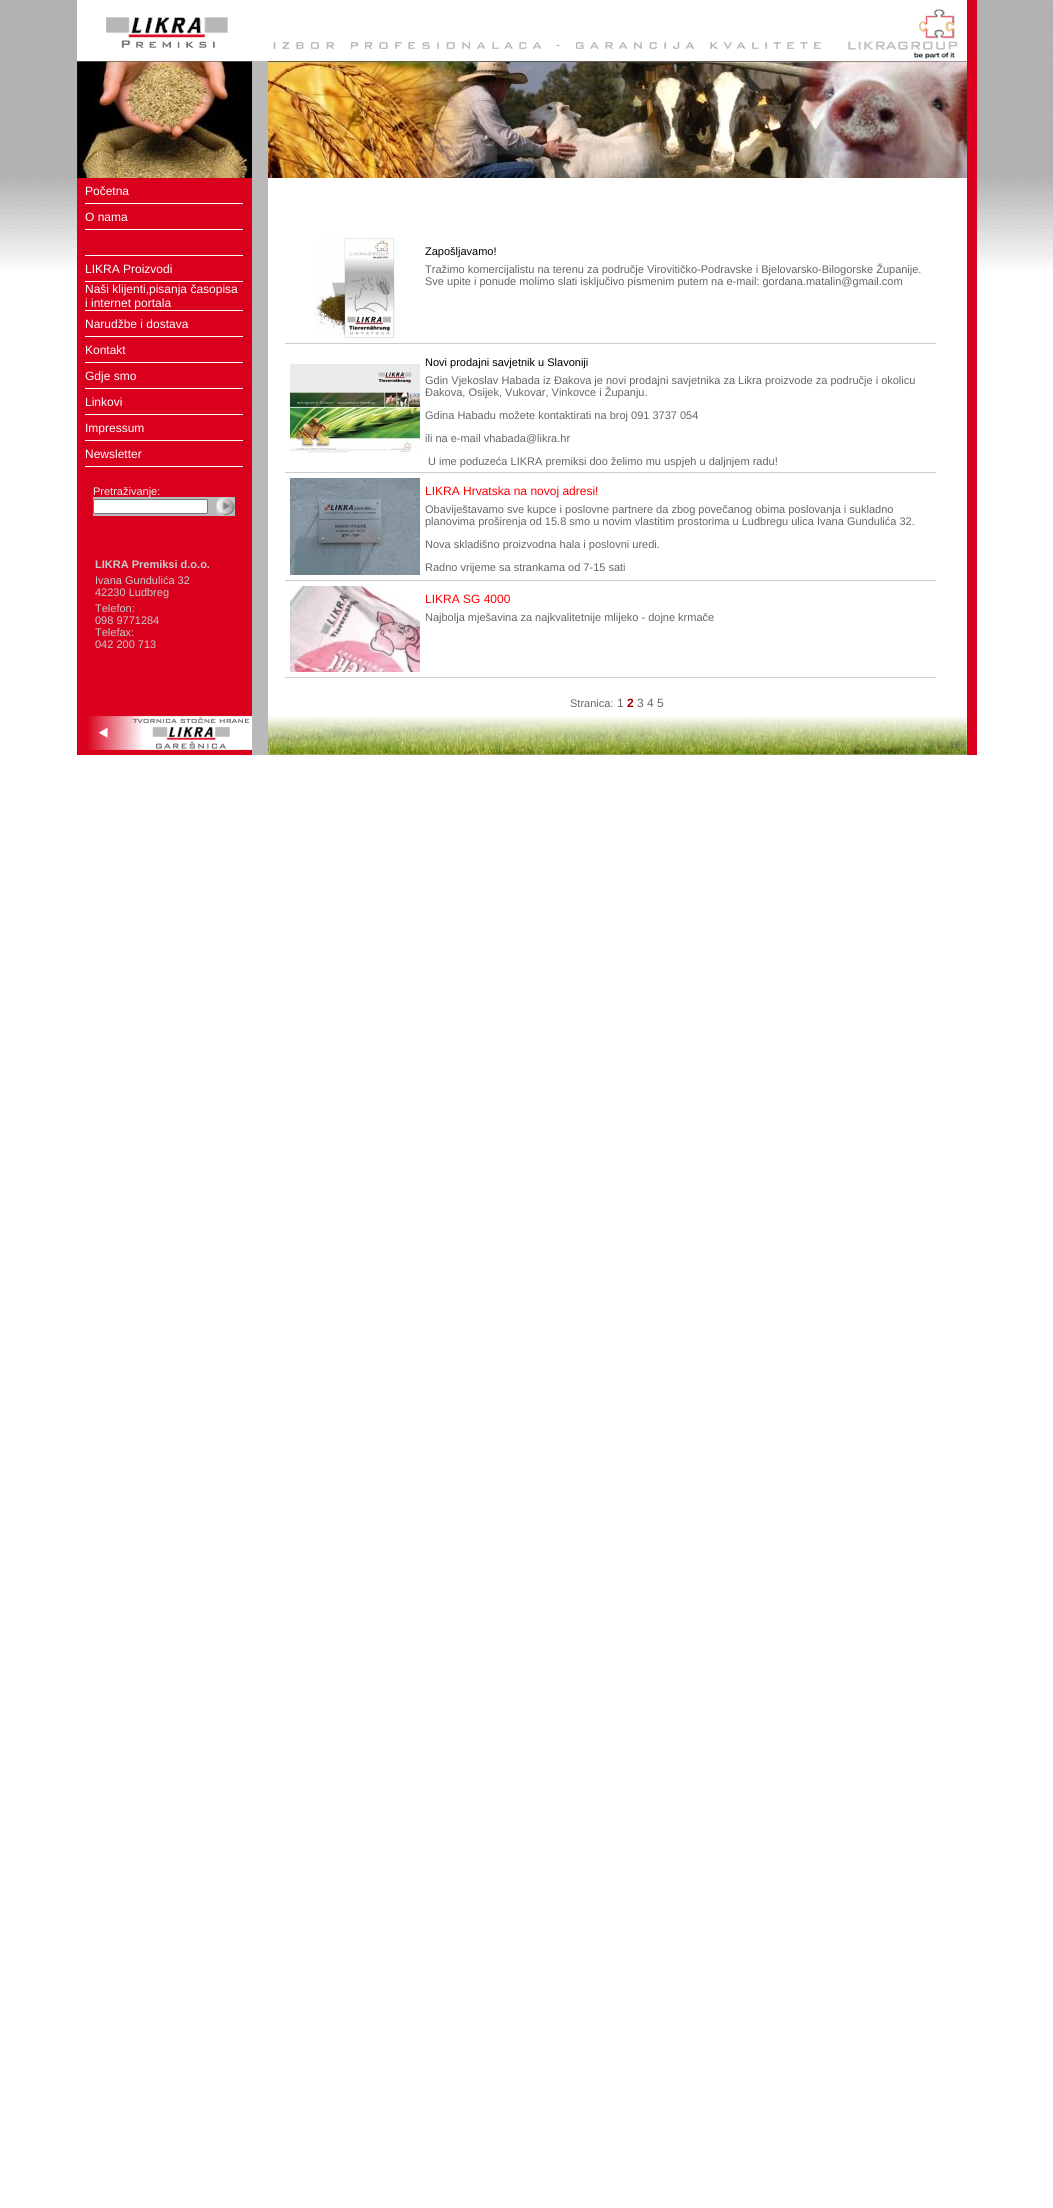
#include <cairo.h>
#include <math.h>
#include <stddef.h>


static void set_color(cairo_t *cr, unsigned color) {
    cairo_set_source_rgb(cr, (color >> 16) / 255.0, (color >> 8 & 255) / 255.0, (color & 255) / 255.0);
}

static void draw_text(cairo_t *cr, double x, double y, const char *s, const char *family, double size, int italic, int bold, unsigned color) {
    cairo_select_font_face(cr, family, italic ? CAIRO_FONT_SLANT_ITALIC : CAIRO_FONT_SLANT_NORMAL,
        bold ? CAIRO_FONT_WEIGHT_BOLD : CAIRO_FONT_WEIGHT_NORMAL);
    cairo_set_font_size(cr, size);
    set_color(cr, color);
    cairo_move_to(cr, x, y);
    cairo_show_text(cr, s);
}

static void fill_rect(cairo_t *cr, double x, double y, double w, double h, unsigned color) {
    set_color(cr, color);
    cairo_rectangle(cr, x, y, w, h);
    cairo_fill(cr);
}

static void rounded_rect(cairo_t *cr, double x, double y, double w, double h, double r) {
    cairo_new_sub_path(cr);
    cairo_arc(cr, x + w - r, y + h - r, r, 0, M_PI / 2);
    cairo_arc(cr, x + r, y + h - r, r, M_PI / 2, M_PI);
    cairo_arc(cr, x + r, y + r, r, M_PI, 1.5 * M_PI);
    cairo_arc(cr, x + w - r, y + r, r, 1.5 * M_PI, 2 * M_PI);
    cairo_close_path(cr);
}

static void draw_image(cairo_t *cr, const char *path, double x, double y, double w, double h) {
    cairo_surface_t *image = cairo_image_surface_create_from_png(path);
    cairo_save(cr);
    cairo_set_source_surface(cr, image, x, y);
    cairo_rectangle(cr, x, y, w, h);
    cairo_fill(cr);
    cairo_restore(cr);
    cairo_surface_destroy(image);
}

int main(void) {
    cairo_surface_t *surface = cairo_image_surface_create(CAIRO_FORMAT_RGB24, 1053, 2208);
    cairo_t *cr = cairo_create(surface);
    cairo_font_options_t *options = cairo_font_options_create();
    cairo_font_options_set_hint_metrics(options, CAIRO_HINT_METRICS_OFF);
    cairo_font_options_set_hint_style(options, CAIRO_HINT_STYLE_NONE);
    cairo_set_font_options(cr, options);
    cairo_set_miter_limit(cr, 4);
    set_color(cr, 0xFFFFFF);
    cairo_paint(cr);
    draw_image(cr, "assets/img1.png", 0, 0, 1053, 271);
    fill_rect(cr, 77, 0, 890, 61, 0xFFFFFF);
    draw_image(cr, "assets/img2.png", 106, 9, 852, 50);
    fill_rect(cr, 967, 0, 10, 755, 0xDA001D);
    draw_image(cr, "assets/img3.png", 77, 61, 175, 117);
    fill_rect(cr, 252, 61, 16, 694, 0xB9B9B9);
    draw_image(cr, "assets/img4.png", 268, 61, 699, 117);
    fill_rect(cr, 77, 178, 175, 577, 0xDA001D);
    draw_text(cr, 85, 195, "Početna", "Liberation Sans", 12, 0, 0, 0xFFFFFF);
    fill_rect(cr, 85, 203, 158, 1, 0xFFFFFF);
    draw_text(cr, 85, 221, "O nama", "Liberation Sans", 12, 0, 0, 0xFFFFFF);
    fill_rect(cr, 85, 229, 158, 1, 0xFFFFFF);
    fill_rect(cr, 85, 255, 158, 1, 0xFFFFFF);
    draw_text(cr, 85, 273, "LIKRA Proizvodi", "Liberation Sans", 12, 0, 0, 0xFFFFFF);
    fill_rect(cr, 85, 281, 158, 1, 0xFFFFFF);
    draw_text(cr, 85, 293, "Naši klijenti,pisanja časopisa", "Liberation Sans", 12, 0, 0, 0xFFFFFF);
    draw_text(cr, 85, 307, "i internet portala", "Liberation Sans", 12, 0, 0, 0xFFFFFF);
    fill_rect(cr, 85, 310, 158, 1, 0xFFFFFF);
    draw_text(cr, 85, 328, "Narudžbe i dostava", "Liberation Sans", 12, 0, 0, 0xFFFFFF);
    fill_rect(cr, 85, 336, 158, 1, 0xFFFFFF);
    draw_text(cr, 85, 354, "Kontakt", "Liberation Sans", 12, 0, 0, 0xFFFFFF);
    fill_rect(cr, 85, 362, 158, 1, 0xFFFFFF);
    draw_text(cr, 85, 380, "Gdje smo", "Liberation Sans", 12, 0, 0, 0xFFFFFF);
    fill_rect(cr, 85, 388, 158, 1, 0xFFFFFF);
    draw_text(cr, 85, 406, "Linkovi", "Liberation Sans", 12, 0, 0, 0xFFFFFF);
    fill_rect(cr, 85, 414, 158, 1, 0xFFFFFF);
    draw_text(cr, 85, 432, "Impressum", "Liberation Sans", 12, 0, 0, 0xFFFFFF);
    fill_rect(cr, 85, 440, 158, 1, 0xFFFFFF);
    draw_text(cr, 85, 458, "Newsletter", "Liberation Sans", 12, 0, 0, 0xFFFFFF);
    fill_rect(cr, 85, 466, 158, 1, 0xFFFFFF);
    fill_rect(cr, 93, 497, 142, 19, 0xB9B9B9);
    draw_text(cr, 93, 495, "Pretraživanje:", "Liberation Sans", 11, 0, 0, 0xEFEFEF);
    set_color(cr, 0xFFFFFF);
    rounded_rect(cr, 93.5, 499.5, 114, 14, 1.5);
    cairo_fill_preserve(cr);
    set_color(cr, 0x767676);
    cairo_set_line_width(cr, 1);
    cairo_stroke(cr);
    draw_image(cr, "assets/img5.png", 216, 497, 19, 19);
    draw_text(cr, 95, 568, "LIKRA Premiksi d.o.o.", "Liberation Sans", 11, 0, 1, 0xCCCCCC);
    draw_text(cr, 95, 584, "Ivana Gundulića 32", "Liberation Sans", 11, 0, 0, 0xCCCCCC);
    draw_text(cr, 95, 596, "42230 Ludbreg", "Liberation Sans", 11, 0, 0, 0xCCCCCC);
    draw_text(cr, 95, 612, "Telefon:", "Liberation Sans", 11, 0, 0, 0xCCCCCC);
    draw_text(cr, 95, 624, "098 9771284", "Liberation Sans", 11, 0, 0, 0xCCCCCC);
    draw_text(cr, 95, 636, "Telefax:", "Liberation Sans", 11, 0, 0, 0xCCCCCC);
    draw_text(cr, 95, 648, "042 200 713", "Liberation Sans", 11, 0, 0, 0xCCCCCC);
    fill_rect(cr, 268, 178, 699, 93, 0xFFFFFF);
    draw_image(cr, "assets/img6.png", 314, 238, 81, 100);
    draw_text(cr, 425, 255, "Zapošljavamo!", "Liberation Sans", 11, 0, 0, 0x000000);
    draw_text(cr, 425, 273, "Tražimo komercijalistu na terenu za područje Virovitičko-Podravske i Bjelovarsko-Bilogorske Županije.", "Liberation Sans", 11, 0, 0, 0x666666);
    draw_text(cr, 425, 285, "Sve upite i ponude molimo slati isključivo pismenim putem na e-mail: gordana.matalin@gmail.com", "Liberation Sans", 11, 0, 0, 0x666666);
    fill_rect(cr, 285, 343, 651, 1, 0xCCCCCC);
    draw_image(cr, "assets/img7.png", 290, 364, 130, 89);
    draw_text(cr, 425, 366, "Novi prodajni savjetnik u Slavoniji", "Liberation Sans", 11, 0, 0, 0x000000);
    draw_text(cr, 425, 384, "Gdin Vjekoslav Habada iz Đakova je novi prodajni savjetnika za Likra proizvode za područje i okolicu", "Liberation Sans", 11, 0, 0, 0x666666);
    draw_text(cr, 425, 396, "Đakova, Osijek, Vukovar, Vinkovce i Županju.", "Liberation Sans", 11, 0, 0, 0x666666);
    draw_text(cr, 425, 419, "Gdina Habadu možete kontaktirati na broj 091 3737 054", "Liberation Sans", 11, 0, 0, 0x666666);
    draw_text(cr, 425, 442, "ili na e-mail vhabada@likra.hr", "Liberation Sans", 11, 0, 0, 0x666666);
    draw_text(cr, 428, 465, "U ime poduzeća LIKRA premiksi doo želimo mu uspjeh u daljnjem radu!", "Liberation Sans", 11, 0, 0, 0x666666);
    fill_rect(cr, 285, 472, 651, 1, 0xCCCCCC);
    draw_image(cr, "assets/img8.png", 290, 478, 130, 97);
    draw_text(cr, 425, 495, "LIKRA Hrvatska na novoj adresi!", "Liberation Sans", 12, 0, 0, 0xFF0000);
    draw_text(cr, 425, 513, "Obaviještavamo sve kupce i poslovne partnere da zbog povečanog obima poslovanja i sukladno", "Liberation Sans", 11, 0, 0, 0x666666);
    draw_text(cr, 425, 525, "planovima proširenja od 15.8 smo u novim vlastitim prostorima u Ludbregu ulica Ivana Gundulića 32.", "Liberation Sans", 11, 0, 0, 0x666666);
    draw_text(cr, 425, 548, "Nova skladišno proizvodna hala i poslovni uredi.", "Liberation Sans", 11, 0, 0, 0x666666);
    draw_text(cr, 425, 571, "Radno vrijeme sa strankama od 7-15 sati", "Liberation Sans", 11, 0, 0, 0x666666);
    fill_rect(cr, 285, 580, 651, 1, 0xCCCCCC);
    draw_image(cr, "assets/img9.png", 290, 586, 130, 86);
    draw_text(cr, 425, 603, "LIKRA SG 4000", "Liberation Sans", 12, 0, 0, 0xFF0000);
    draw_text(cr, 425, 621, "Najbolja mješavina za najkvalitetnije mlijeko - dojne krmače", "Liberation Sans", 11, 0, 0, 0x666666);
    fill_rect(cr, 285, 677, 651, 1, 0xCCCCCC);
    draw_text(cr, 570, 707, "Stranica:", "Liberation Sans", 11, 0, 0, 0x666666);
    draw_text(cr, 617, 707, "1", "Liberation Sans", 12, 0, 0, 0x666666);
    draw_text(cr, 627, 707, "2", "Liberation Sans", 12, 0, 1, 0x990000);
    draw_text(cr, 637, 707, "3 4 5", "Liberation Sans", 12, 0, 0, 0x666666);
    draw_image(cr, "assets/img10.png", 77, 716, 175, 34);
    draw_image(cr, "assets/img11.png", 268, 716, 699, 39);
    cairo_surface_write_to_png(surface, "output.png");
    cairo_font_options_destroy(options);
    cairo_destroy(cr);
    cairo_surface_destroy(surface);
    return 0;
}
